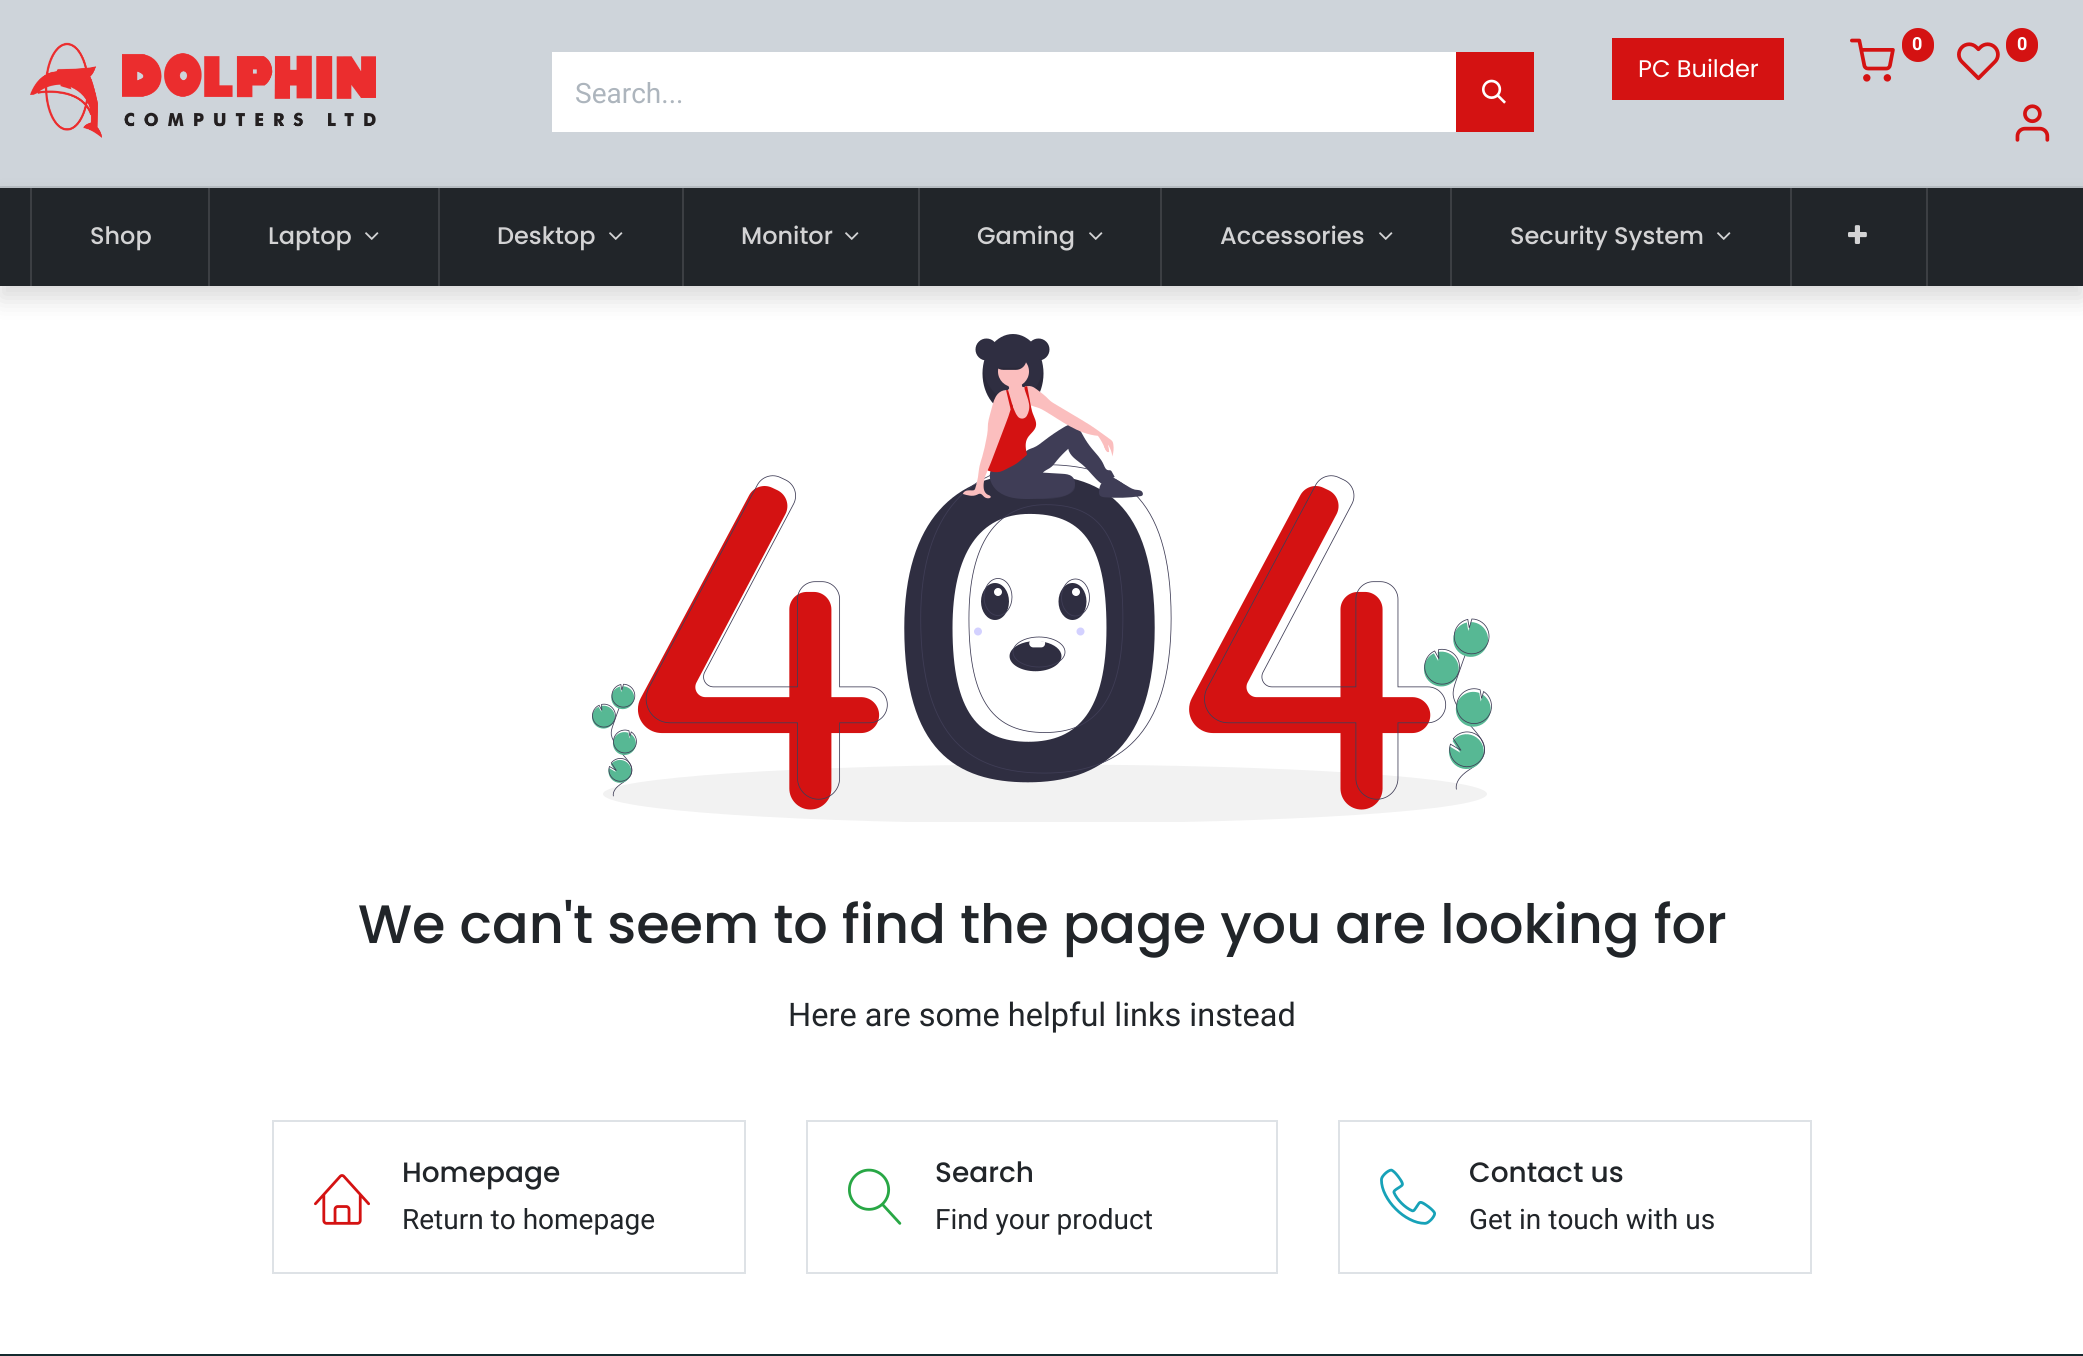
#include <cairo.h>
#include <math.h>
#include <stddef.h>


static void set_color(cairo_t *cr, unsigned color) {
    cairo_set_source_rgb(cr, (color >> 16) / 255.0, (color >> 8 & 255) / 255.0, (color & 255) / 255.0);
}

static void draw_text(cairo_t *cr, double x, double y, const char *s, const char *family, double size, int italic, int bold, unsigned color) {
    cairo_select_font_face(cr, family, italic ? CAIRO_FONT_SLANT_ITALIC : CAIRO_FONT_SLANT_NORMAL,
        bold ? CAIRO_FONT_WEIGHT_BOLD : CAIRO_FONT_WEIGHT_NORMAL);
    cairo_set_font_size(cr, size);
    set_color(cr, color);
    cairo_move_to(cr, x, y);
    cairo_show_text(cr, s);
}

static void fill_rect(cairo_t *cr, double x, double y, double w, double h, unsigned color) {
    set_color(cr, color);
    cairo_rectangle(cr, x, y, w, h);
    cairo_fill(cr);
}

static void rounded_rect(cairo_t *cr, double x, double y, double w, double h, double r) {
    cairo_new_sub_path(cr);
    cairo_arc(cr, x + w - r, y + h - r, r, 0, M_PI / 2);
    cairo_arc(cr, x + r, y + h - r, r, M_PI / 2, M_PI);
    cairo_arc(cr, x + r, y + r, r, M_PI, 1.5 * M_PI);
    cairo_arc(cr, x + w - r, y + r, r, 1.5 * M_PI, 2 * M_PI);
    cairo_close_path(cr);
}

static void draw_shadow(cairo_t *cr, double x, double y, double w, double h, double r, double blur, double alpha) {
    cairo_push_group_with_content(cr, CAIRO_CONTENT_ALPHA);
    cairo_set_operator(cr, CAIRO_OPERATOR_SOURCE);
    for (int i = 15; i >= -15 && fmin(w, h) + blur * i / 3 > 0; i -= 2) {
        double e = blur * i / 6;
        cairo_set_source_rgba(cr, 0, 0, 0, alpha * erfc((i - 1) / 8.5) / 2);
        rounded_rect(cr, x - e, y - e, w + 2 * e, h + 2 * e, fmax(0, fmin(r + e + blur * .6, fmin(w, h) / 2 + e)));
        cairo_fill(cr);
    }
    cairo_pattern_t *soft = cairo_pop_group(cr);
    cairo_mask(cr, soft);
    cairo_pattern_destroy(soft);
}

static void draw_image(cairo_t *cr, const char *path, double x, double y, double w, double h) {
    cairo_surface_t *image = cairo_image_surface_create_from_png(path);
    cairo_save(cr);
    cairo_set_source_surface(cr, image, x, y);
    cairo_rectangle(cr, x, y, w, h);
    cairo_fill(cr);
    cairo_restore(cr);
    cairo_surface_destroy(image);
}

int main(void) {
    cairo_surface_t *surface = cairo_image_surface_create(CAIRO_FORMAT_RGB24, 2083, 1356);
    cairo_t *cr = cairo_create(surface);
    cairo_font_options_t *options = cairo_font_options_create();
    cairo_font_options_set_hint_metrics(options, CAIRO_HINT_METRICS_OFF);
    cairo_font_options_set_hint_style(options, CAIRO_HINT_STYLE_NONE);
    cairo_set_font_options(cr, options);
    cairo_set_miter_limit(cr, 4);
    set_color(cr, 0xFFFFFF);
    cairo_paint(cr);
    fill_rect(cr, 0, 0, 2083, 186, 0xCED4DA);
    fill_rect(cr, 0, 186, 2083, 2, 0xB9BFC5);
    draw_image(cr, "assets/img1.png", 30, 42, 346, 96);
    fill_rect(cr, 552, 52, 904, 80, 0xFFFFFF);
    draw_text(cr, 575, 103, "Search...", "Roboto", 28, 0, 0, 0xADB5BD);
    fill_rect(cr, 1456, 52, 78, 80, 0xD41212);
    draw_image(cr, "assets/img2.png", 1482, 79, 24, 25);
    draw_image(cr, "assets/img3.png", 1850, 38, 45, 44);
    rounded_rect(cr, 1902, 28, 32, 34, 16);
    cairo_fill(cr);
    draw_text(cr, 1912, 50, "0", "Roboto", 18, 0, 1, 0xFFFFFF);
    draw_image(cr, "assets/img4.png", 1957, 42, 43, 39);
    set_color(cr, 0xD41212);
    rounded_rect(cr, 2006, 28, 32, 34, 16);
    cairo_fill(cr);
    draw_text(cr, 2017, 50, "0", "Roboto", 18, 0, 1, 0xFFFFFF);
    fill_rect(cr, 1612, 38, 172, 62, 0xD41212);
    draw_text(cr, 1638, 77, "PC Builder", "Poppins", 24, 0, 0, 0xFFFFFF);
    draw_image(cr, "assets/img5.png", 2015, 104, 35, 38);
    draw_image(cr, "assets/img8.png", 592, 334, 900, 488);
    set_color(cr, 0x000000);
    draw_shadow(cr, 0, 200, 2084, 98, 0, 12, 0.15);
    fill_rect(cr, 0, 188, 2083, 98, 0x212529);
    fill_rect(cr, 30, 188, 2, 98, 0x3C3F43);
    draw_text(cr, 90, 244, "Shop", "Poppins Medium", 24, 0, 0, 0xD3D3D4);
    fill_rect(cr, 208, 188, 2, 98, 0x3C3F43);
    draw_text(cr, 268, 244, "Laptop", "Poppins Medium", 24, 0, 0, 0xD3D3D4);
    draw_image(cr, "assets/img6.png", 365, 232, 14, 8);
    fill_rect(cr, 438, 188, 2, 98, 0x3C3F43);
    draw_text(cr, 497, 244, "Desktop", "Poppins Medium", 24, 0, 0, 0xD3D3D4);
    draw_image(cr, "assets/img6.png", 609, 232, 14, 8);
    fill_rect(cr, 682, 188, 2, 98, 0x3C3F43);
    draw_text(cr, 741, 244, "Monitor", "Poppins Medium", 24, 0, 0, 0xD3D3D4);
    draw_image(cr, "assets/img6.png", 845, 232, 14, 8);
    fill_rect(cr, 918, 188, 2, 98, 0x3C3F43);
    draw_text(cr, 977, 244, "Gaming", "Poppins Medium", 24, 0, 0, 0xD3D3D4);
    draw_image(cr, "assets/img6.png", 1089, 232, 14, 8);
    fill_rect(cr, 1160, 188, 2, 98, 0x3C3F43);
    draw_text(cr, 1220, 244, "Accessories", "Poppins Medium", 24, 0, 0, 0xD3D3D4);
    draw_image(cr, "assets/img6.png", 1379, 232, 14, 8);
    fill_rect(cr, 1450, 188, 2, 98, 0x3C3F43);
    draw_text(cr, 1510, 244, "Security System", "Poppins Medium", 24, 0, 0, 0xD3D3D4);
    draw_image(cr, "assets/img6.png", 1717, 232, 14, 8);
    fill_rect(cr, 1926, 188, 2, 98, 0x3C3F43);
    fill_rect(cr, 1790, 188, 2, 98, 0x3C3F43);
    draw_image(cr, "assets/img7.png", 1848, 225, 19, 19);
    draw_text(cr, 358, 943, "We can't seem to find the page you are looking for", "Poppins Medium", 54.1, 0, 0, 0x212529);
    draw_text(cr, 788, 1026, "Here are some helpful links instead", "Roboto", 32.5, 0, 0, 0x212529);
    cairo_rectangle(cr, 273, 1121, 472, 152);
    set_color(cr, 0xDEE2E6);
    cairo_stroke(cr);
    draw_image(cr, "assets/img9.png", 314, 1174, 56, 51);
    draw_text(cr, 402, 1182, "Homepage", "Poppins Medium", 28, 0, 0, 0x212529);
    draw_text(cr, 402, 1229, "Return to homepage", "Roboto", 28, 0, 0, 0x212529);
    cairo_rectangle(cr, 807, 1121, 470, 152);
    set_color(cr, 0xDEE2E6);
    cairo_stroke(cr);
    draw_image(cr, "assets/img10.png", 848, 1168, 54, 57);
    draw_text(cr, 935, 1182, "Search", "Poppins Medium", 28, 0, 0, 0x212529);
    draw_text(cr, 935, 1229, "Find your product", "Roboto", 28, 0, 0, 0x212529);
    cairo_rectangle(cr, 1339, 1121, 472, 152);
    set_color(cr, 0xDEE2E6);
    cairo_stroke(cr);
    draw_image(cr, "assets/img11.png", 1380, 1168, 56, 57);
    draw_text(cr, 1469, 1182, "Contact us", "Poppins Medium", 28, 0, 0, 0x212529);
    draw_text(cr, 1469, 1229, "Get in touch with us", "Roboto", 28, 0, 0, 0x212529);
    fill_rect(cr, 0, 1354, 2083, 2, 0x142A2E);
    cairo_surface_write_to_png(surface, "output.png");
    cairo_font_options_destroy(options);
    cairo_destroy(cr);
    cairo_surface_destroy(surface);
    return 0;
}
